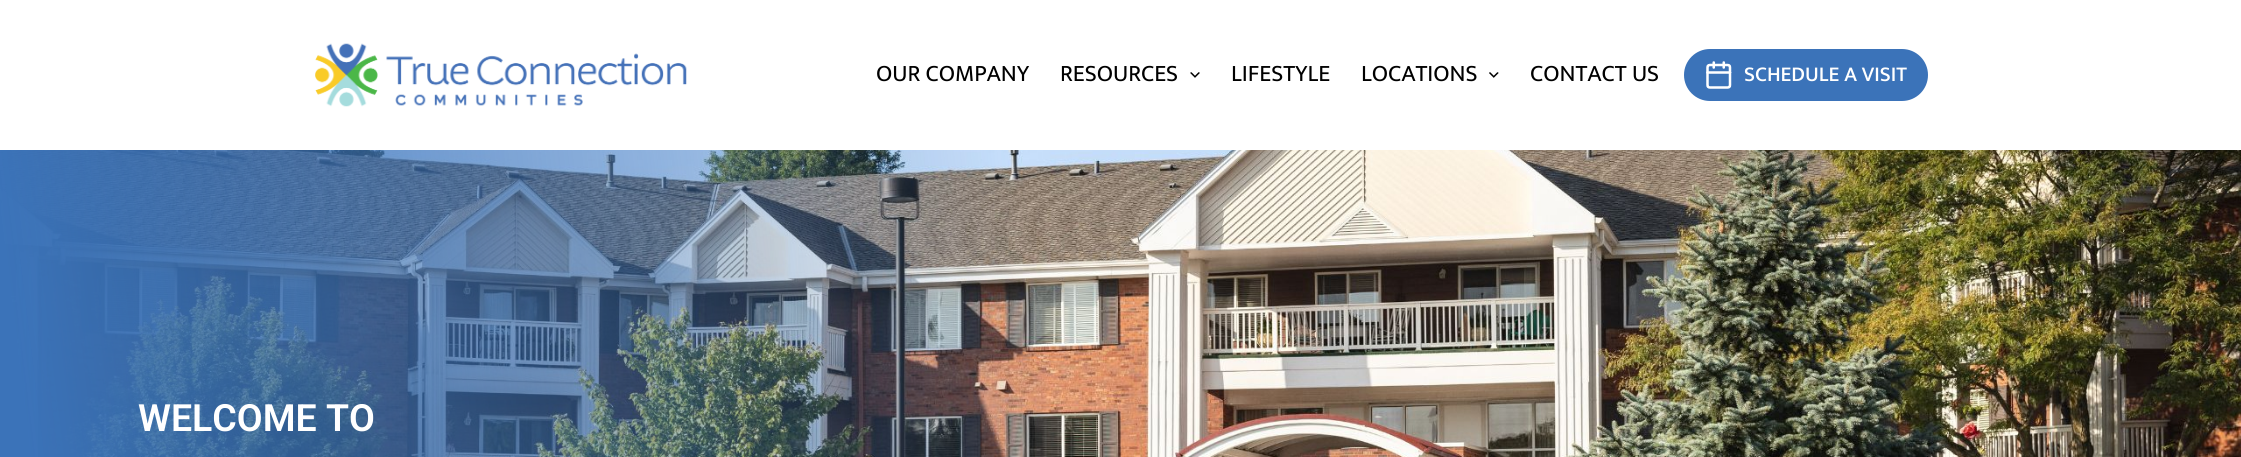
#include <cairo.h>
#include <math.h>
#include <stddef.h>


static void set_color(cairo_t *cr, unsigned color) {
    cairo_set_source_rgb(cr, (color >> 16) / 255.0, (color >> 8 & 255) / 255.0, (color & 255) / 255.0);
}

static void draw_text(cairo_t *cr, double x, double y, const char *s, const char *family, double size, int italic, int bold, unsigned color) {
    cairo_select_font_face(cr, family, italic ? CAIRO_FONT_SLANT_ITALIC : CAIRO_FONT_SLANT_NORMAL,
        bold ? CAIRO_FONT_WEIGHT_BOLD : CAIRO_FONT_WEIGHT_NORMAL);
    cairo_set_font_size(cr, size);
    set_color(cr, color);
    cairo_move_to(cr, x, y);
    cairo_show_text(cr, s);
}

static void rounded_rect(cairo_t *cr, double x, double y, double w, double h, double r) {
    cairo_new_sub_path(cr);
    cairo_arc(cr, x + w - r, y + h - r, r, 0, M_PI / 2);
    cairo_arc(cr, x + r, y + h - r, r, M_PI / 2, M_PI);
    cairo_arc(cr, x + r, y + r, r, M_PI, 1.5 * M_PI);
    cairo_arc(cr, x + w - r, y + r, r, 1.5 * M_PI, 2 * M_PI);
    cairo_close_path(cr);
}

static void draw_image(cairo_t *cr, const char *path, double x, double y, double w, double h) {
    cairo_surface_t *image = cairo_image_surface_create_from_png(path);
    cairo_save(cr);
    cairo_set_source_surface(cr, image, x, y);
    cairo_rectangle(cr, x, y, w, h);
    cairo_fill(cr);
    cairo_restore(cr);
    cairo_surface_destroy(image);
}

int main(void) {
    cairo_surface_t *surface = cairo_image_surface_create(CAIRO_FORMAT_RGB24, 2241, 457);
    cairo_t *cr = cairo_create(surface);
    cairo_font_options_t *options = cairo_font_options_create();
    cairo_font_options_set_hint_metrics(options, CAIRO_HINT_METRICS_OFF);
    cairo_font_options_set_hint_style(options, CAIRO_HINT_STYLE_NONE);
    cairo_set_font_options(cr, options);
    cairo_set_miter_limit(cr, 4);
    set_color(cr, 0xFFFFFF);
    cairo_paint(cr);
    draw_image(cr, "assets/img1.png", 315, 43, 372, 64);
    draw_text(cr, 876, 81, "OUR COMPANY", "Mukta", 23.75, 0, 0, 0x000000);
    draw_text(cr, 1060, 81, "RESOURCES", "Mukta", 23.75, 0, 0, 0x000000);
    draw_image(cr, "assets/img2.png", 1190, 72, 10, 6);
    draw_text(cr, 1231, 81, "LIFESTYLE", "Mukta", 23.75, 0, 0, 0x000000);
    draw_text(cr, 1361, 81, "LOCATIONS", "Mukta", 23.75, 0, 0, 0x000000);
    draw_image(cr, "assets/img3.png", 1489, 72, 10, 6);
    draw_text(cr, 1530, 81, "CONTACT US", "Mukta", 23.75, 0, 0, 0x000000);
    set_color(cr, 0x3B73B9);
    rounded_rect(cr, 1684, 49, 244, 52, 26);
    cairo_fill(cr);
    draw_image(cr, "assets/img4.png", 1706, 61, 26, 28);
    draw_text(cr, 1744, 81, "SCHEDULE A VISIT", "Mukta Medium", 21.25, 0, 0, 0xFFFFFF);
    draw_image(cr, "assets/img5.png", 0, 150, 2241, 307);
    draw_text(cr, 138, 431, "WELCOME TO", "Roboto SemiBold", 37.5, 0, 0, 0xFFFFFF);
    cairo_surface_write_to_png(surface, "output.png");
    cairo_font_options_destroy(options);
    cairo_destroy(cr);
    cairo_surface_destroy(surface);
    return 0;
}
